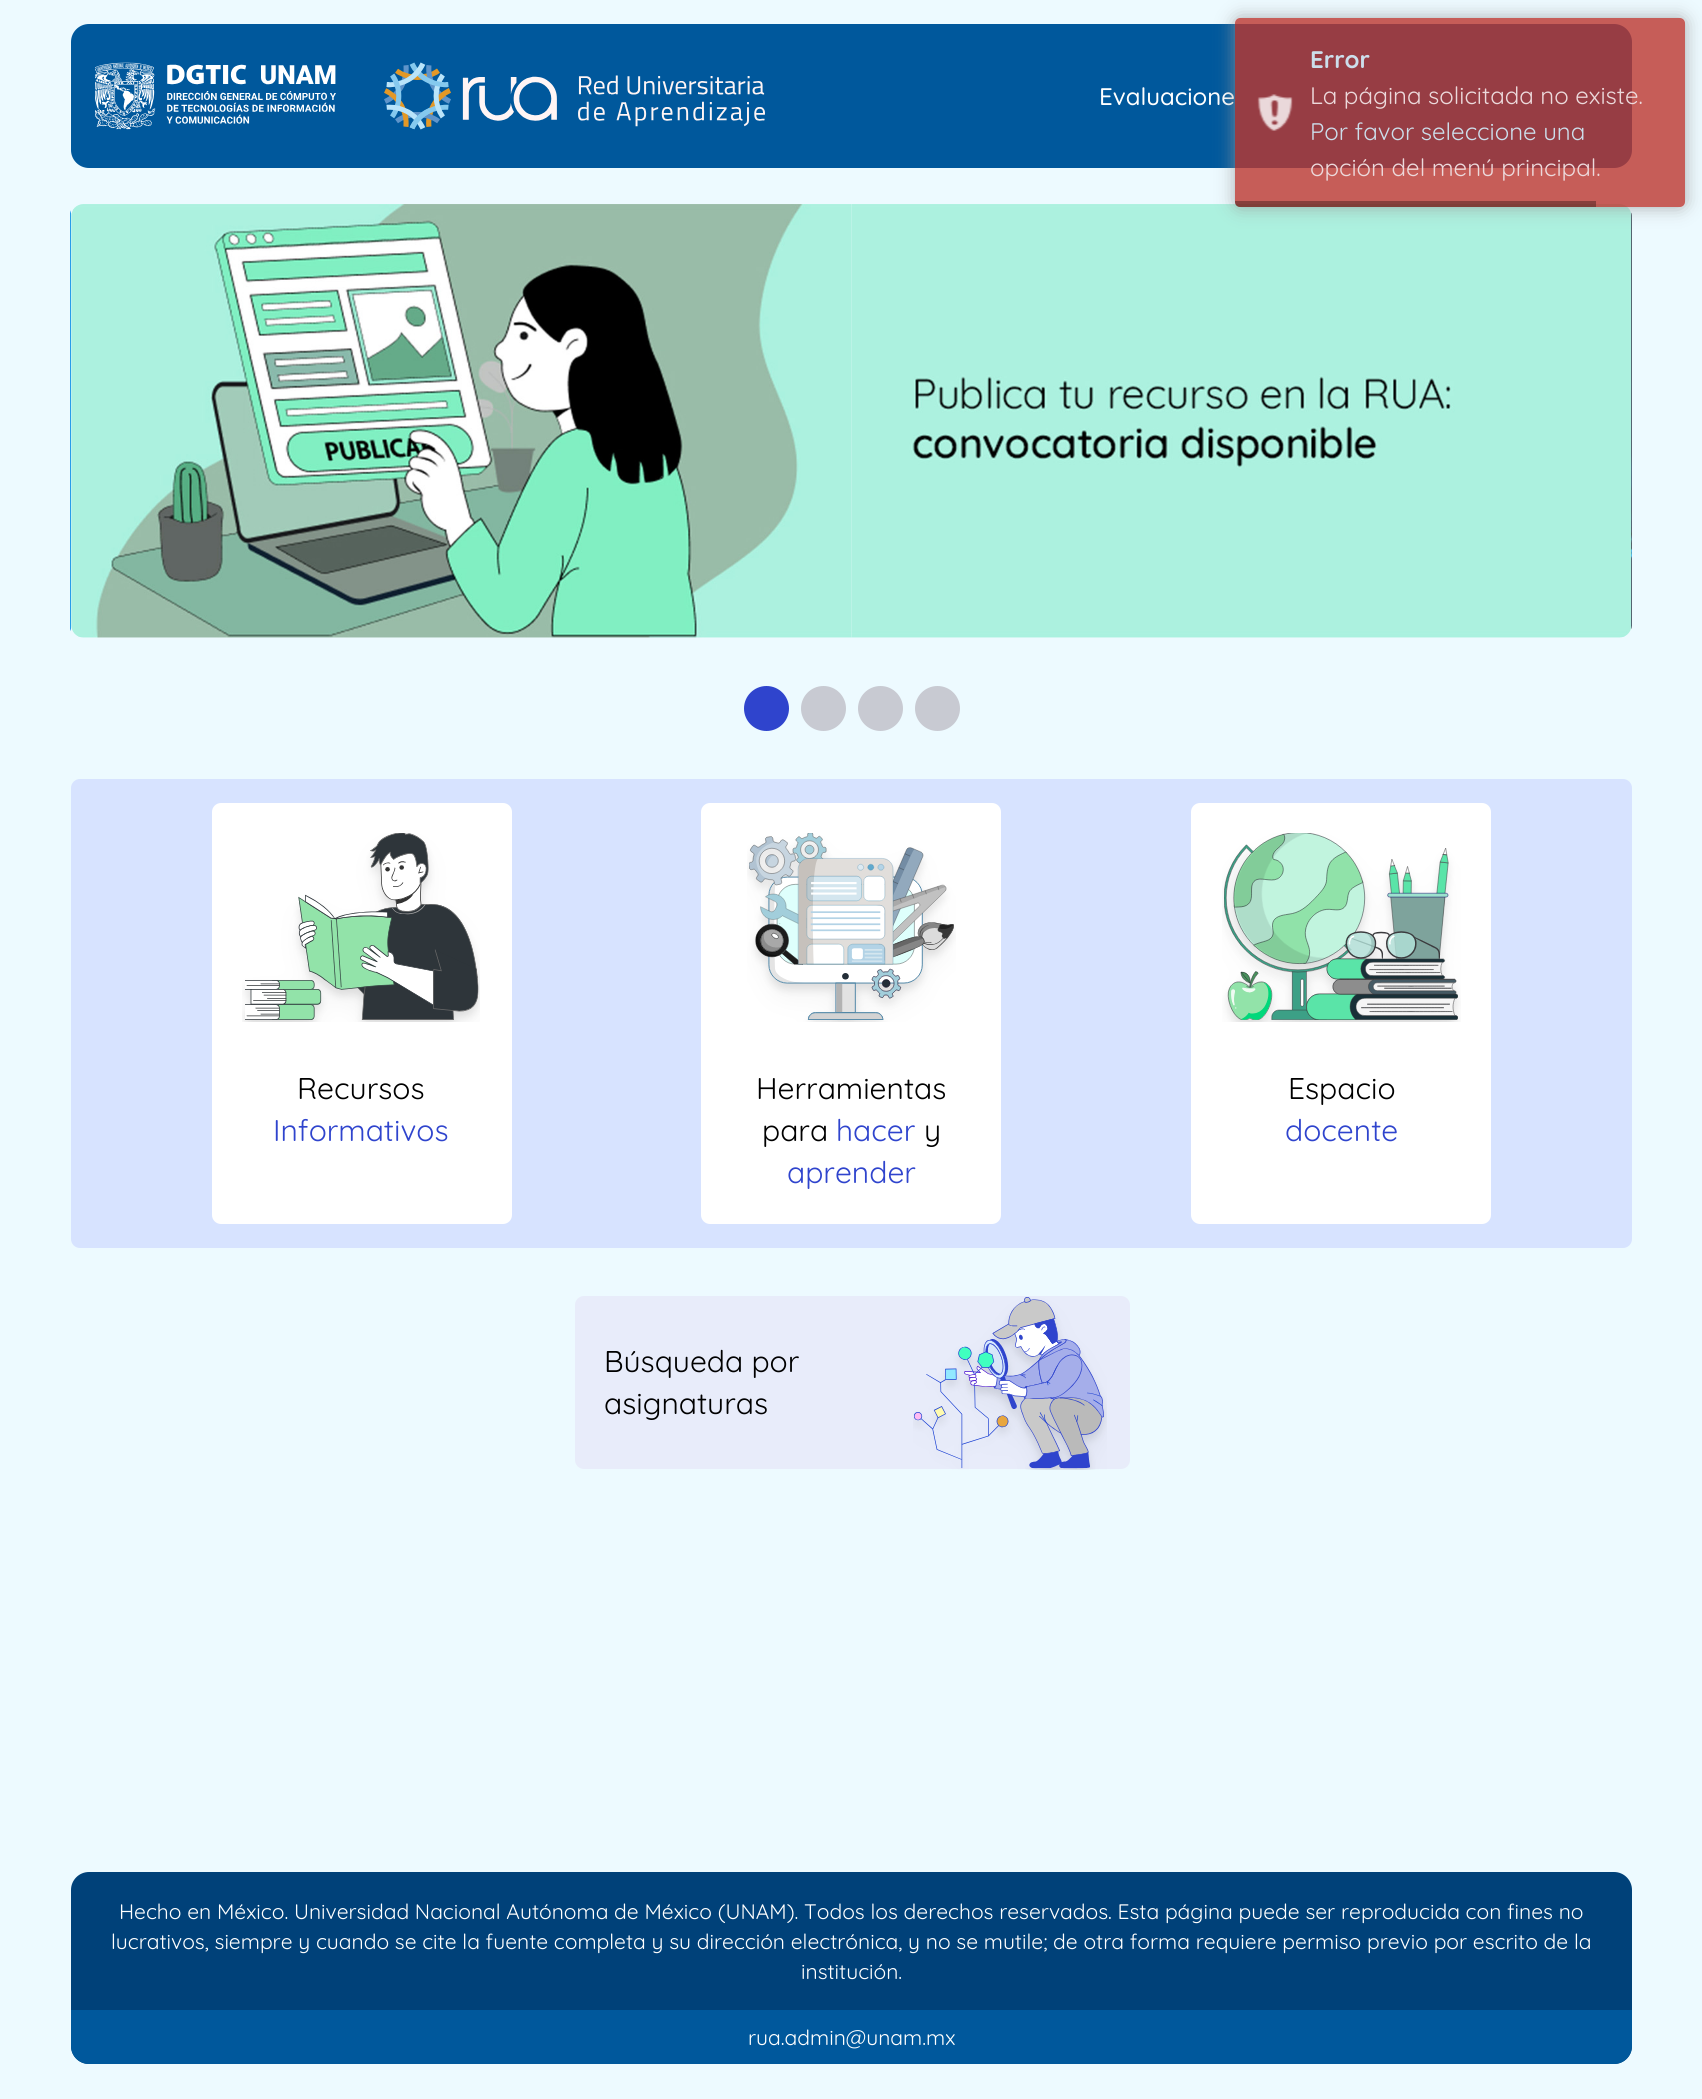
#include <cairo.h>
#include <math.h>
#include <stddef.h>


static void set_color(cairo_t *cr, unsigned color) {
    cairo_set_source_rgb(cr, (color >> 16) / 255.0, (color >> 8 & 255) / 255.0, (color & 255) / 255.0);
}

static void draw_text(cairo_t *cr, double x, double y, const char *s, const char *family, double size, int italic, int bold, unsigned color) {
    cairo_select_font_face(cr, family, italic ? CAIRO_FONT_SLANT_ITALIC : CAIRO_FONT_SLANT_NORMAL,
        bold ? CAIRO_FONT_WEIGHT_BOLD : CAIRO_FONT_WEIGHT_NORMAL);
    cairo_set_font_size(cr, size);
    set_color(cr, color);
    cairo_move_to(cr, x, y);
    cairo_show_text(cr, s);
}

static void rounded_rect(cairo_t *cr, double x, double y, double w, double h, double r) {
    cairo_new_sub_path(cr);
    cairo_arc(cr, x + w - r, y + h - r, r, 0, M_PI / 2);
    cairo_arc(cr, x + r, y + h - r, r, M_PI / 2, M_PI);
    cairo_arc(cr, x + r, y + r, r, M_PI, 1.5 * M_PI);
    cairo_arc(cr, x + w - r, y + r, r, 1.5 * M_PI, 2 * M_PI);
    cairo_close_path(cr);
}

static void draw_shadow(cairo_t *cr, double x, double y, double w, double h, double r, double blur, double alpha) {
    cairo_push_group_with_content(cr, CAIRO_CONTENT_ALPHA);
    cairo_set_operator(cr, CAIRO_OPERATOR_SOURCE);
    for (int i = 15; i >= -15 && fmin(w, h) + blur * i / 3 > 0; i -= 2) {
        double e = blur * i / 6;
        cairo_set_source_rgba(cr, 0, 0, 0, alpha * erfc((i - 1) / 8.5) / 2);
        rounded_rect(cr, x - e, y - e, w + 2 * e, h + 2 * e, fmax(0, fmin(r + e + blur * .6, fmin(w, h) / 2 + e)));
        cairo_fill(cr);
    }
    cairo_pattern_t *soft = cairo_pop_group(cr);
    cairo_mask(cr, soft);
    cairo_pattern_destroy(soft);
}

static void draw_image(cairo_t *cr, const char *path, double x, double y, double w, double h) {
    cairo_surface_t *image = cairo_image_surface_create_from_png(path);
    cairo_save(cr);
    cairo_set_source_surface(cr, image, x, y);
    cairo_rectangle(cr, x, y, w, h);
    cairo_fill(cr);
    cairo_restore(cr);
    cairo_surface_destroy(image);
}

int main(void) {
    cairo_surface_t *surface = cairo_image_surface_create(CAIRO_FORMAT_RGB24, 1702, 2099);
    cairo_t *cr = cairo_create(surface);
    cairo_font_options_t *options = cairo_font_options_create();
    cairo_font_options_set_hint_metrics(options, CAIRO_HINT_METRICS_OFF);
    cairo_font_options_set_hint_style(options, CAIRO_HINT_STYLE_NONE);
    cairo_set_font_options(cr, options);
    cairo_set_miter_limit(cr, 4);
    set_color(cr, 0xEDFAFF);
    cairo_paint(cr);
    set_color(cr, 0x00589C);
    rounded_rect(cr, 71, 24, 1561, 144, 18);
    cairo_fill(cr);
    draw_image(cr, "assets/img1.png", 95, 62, 241, 68);
    draw_image(cr, "assets/img2.png", 384, 62, 381, 68);
    draw_text(cr, 1099, 105, "Evaluacione", "Quicksand Medium", 24, 0, 0, 0xFFFFFF);
    draw_image(cr, "assets/img6.png", 70, 210, 2, 421);
    draw_image(cr, "assets/img4.png", 71, 204, 781, 434);
    draw_image(cr, "assets/img5.png", 851, 204, 781, 434);
    draw_image(cr, "assets/img7.png", 1631, 212, 1, 417);
    cairo_save(cr);
    cairo_set_fill_rule(cr, CAIRO_FILL_RULE_EVEN_ODD);
    cairo_new_path(cr);
    cairo_move_to(cr, 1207, 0);
    cairo_line_to(cr, 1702, 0);
    cairo_line_to(cr, 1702, 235);
    cairo_line_to(cr, 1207, 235);
    cairo_close_path(cr);
    cairo_move_to(cr, 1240, 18);
    cairo_line_to(cr, 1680, 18);
    cairo_curve_to(cr, 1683, 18, 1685, 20, 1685, 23);
    cairo_line_to(cr, 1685, 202);
    cairo_curve_to(cr, 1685, 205, 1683, 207, 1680, 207);
    cairo_line_to(cr, 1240, 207);
    cairo_curve_to(cr, 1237, 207, 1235, 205, 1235, 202);
    cairo_line_to(cr, 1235, 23);
    cairo_curve_to(cr, 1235, 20, 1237, 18, 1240, 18);
    cairo_close_path(cr);
    cairo_clip(cr);
    set_color(cr, 0x999999);
    draw_shadow(cr, 1235, 18, 450, 189, 5, 9, 0.8);
    cairo_restore(cr);
    cairo_set_source_rgba(cr, 0.741, 0.212, 0.184, 0.8);
    rounded_rect(cr, 1235, 18, 450, 189, 5);
    cairo_fill(cr);
    draw_image(cr, "assets/img3.png", 1257, 94, 36, 37);
    draw_text(cr, 1310, 68, "Error", "Quicksand", 24, 0, 1, 0xCCDEEB);
    draw_text(cr, 1310, 104, "La página solicitada no existe.", "Quicksand", 24, 0, 0, 0xECD9DB);
    draw_text(cr, 1310, 140, "Por favor seleccione una", "Quicksand", 24, 0, 0, 0xCCDEEB);
    draw_text(cr, 1310, 176, "opción del menú principal.", "Quicksand", 24, 0, 0, 0xECD9DB);
    cairo_set_source_rgba(cr, 0, 0, 0, 0.32);
    cairo_new_path(cr);
    cairo_move_to(cr, 1235, 201);
    cairo_line_to(cr, 1596, 201);
    cairo_line_to(cr, 1596, 207);
    cairo_line_to(cr, 1240, 207);
    cairo_curve_to(cr, 1237, 207, 1235, 205, 1235, 202);
    cairo_close_path(cr);
    cairo_fill(cr);
    set_color(cr, 0x2F44CD);
    cairo_arc(cr, 766.5, 708.5, 22.5, 0, 2 * M_PI);
    cairo_fill(cr);
    set_color(cr, 0xC8CAD2);
    cairo_arc(cr, 823.5, 708.5, 22.5, 0, 2 * M_PI);
    cairo_fill(cr);
    cairo_arc(cr, 880.5, 708.5, 22.5, 0, 2 * M_PI);
    cairo_fill(cr);
    cairo_arc(cr, 937.5, 708.5, 22.5, 0, 2 * M_PI);
    cairo_fill(cr);
    set_color(cr, 0xD7E3FF);
    rounded_rect(cr, 71, 779, 1561, 469, 9);
    cairo_fill(cr);
    set_color(cr, 0xFFFFFF);
    rounded_rect(cr, 212, 803, 300, 421, 9);
    cairo_fill(cr);
    draw_image(cr, "assets/img8.png", 242, 833, 238, 189);
    draw_text(cr, 297, 1099, "Recursos", "Quicksand", 30, 0, 0, 0x000000);
    draw_text(cr, 273, 1141, "Informativos", "Quicksand", 30, 0, 0, 0x2F44CD);
    set_color(cr, 0xFFFFFF);
    rounded_rect(cr, 701, 803, 300, 421, 9);
    cairo_fill(cr);
    draw_image(cr, "assets/img9.png", 747, 833, 209, 189);
    draw_text(cr, 756, 1099, "Herramientas", "Quicksand", 30, 0, 0, 0x000000);
    draw_text(cr, 762, 1141, "para", "Quicksand", 30, 0, 0, 0x000000);
    draw_text(cr, 836, 1141, "hacer", "Quicksand", 30, 0, 0, 0x2F44CD);
    draw_text(cr, 924, 1141, "y", "Quicksand", 30, 0, 0, 0x000000);
    draw_text(cr, 787, 1183, "aprender", "Quicksand", 30, 0, 0, 0x2F44CD);
    set_color(cr, 0xFFFFFF);
    rounded_rect(cr, 1191, 803, 300, 421, 9);
    cairo_fill(cr);
    draw_image(cr, "assets/img10.png", 1222, 833, 239, 189);
    draw_text(cr, 1288, 1099, "Espacio", "Quicksand", 30, 0, 0, 0x000000);
    draw_text(cr, 1285, 1141, "docente", "Quicksand", 30, 0, 0, 0x2F44CD);
    set_color(cr, 0xE8ECFA);
    rounded_rect(cr, 575, 1296, 555, 173, 9);
    cairo_fill(cr);
    draw_text(cr, 604, 1372, "Búsqueda por", "Quicksand", 30, 0, 0, 0x000000);
    draw_text(cr, 604, 1414, "asignaturas", "Quicksand", 30, 0, 0, 0x000000);
    draw_image(cr, "assets/img11.png", 913, 1297, 194, 173);
    set_color(cr, 0x004179);
    rounded_rect(cr, 71, 1872, 1561, 192, 18);
    cairo_fill(cr);
    draw_text(cr, 119, 1919, "Hecho en México. Universidad Nacional Autónoma de México (UNAM). Todos los derechos reservados. Esta página puede ser reproducida con fines no", "Quicksand", 21, 0, 0, 0xFFFFFF);
    draw_text(cr, 111, 1949, "lucrativos, siempre y cuando se cite la fuente completa y su dirección electrónica, y no se mutile; de otra forma requiere permiso previo por escrito de la", "Quicksand", 21, 0, 0, 0xFFFFFF);
    draw_text(cr, 801, 1979, "institución.", "Quicksand", 21, 0, 0, 0xFFFFFF);
    set_color(cr, 0x00589C);
    cairo_new_path(cr);
    cairo_move_to(cr, 71, 2010);
    cairo_line_to(cr, 1632, 2010);
    cairo_line_to(cr, 1632, 2046);
    cairo_curve_to(cr, 1632, 2056, 1624, 2064, 1614, 2064);
    cairo_line_to(cr, 89, 2064);
    cairo_curve_to(cr, 79, 2064, 71, 2056, 71, 2046);
    cairo_close_path(cr);
    cairo_fill(cr);
    draw_text(cr, 748, 2045, "rua.admin@unam.mx", "Quicksand", 21, 0, 0, 0xFFFFFF);
    cairo_surface_write_to_png(surface, "output.png");
    cairo_font_options_destroy(options);
    cairo_destroy(cr);
    cairo_surface_destroy(surface);
    return 0;
}
